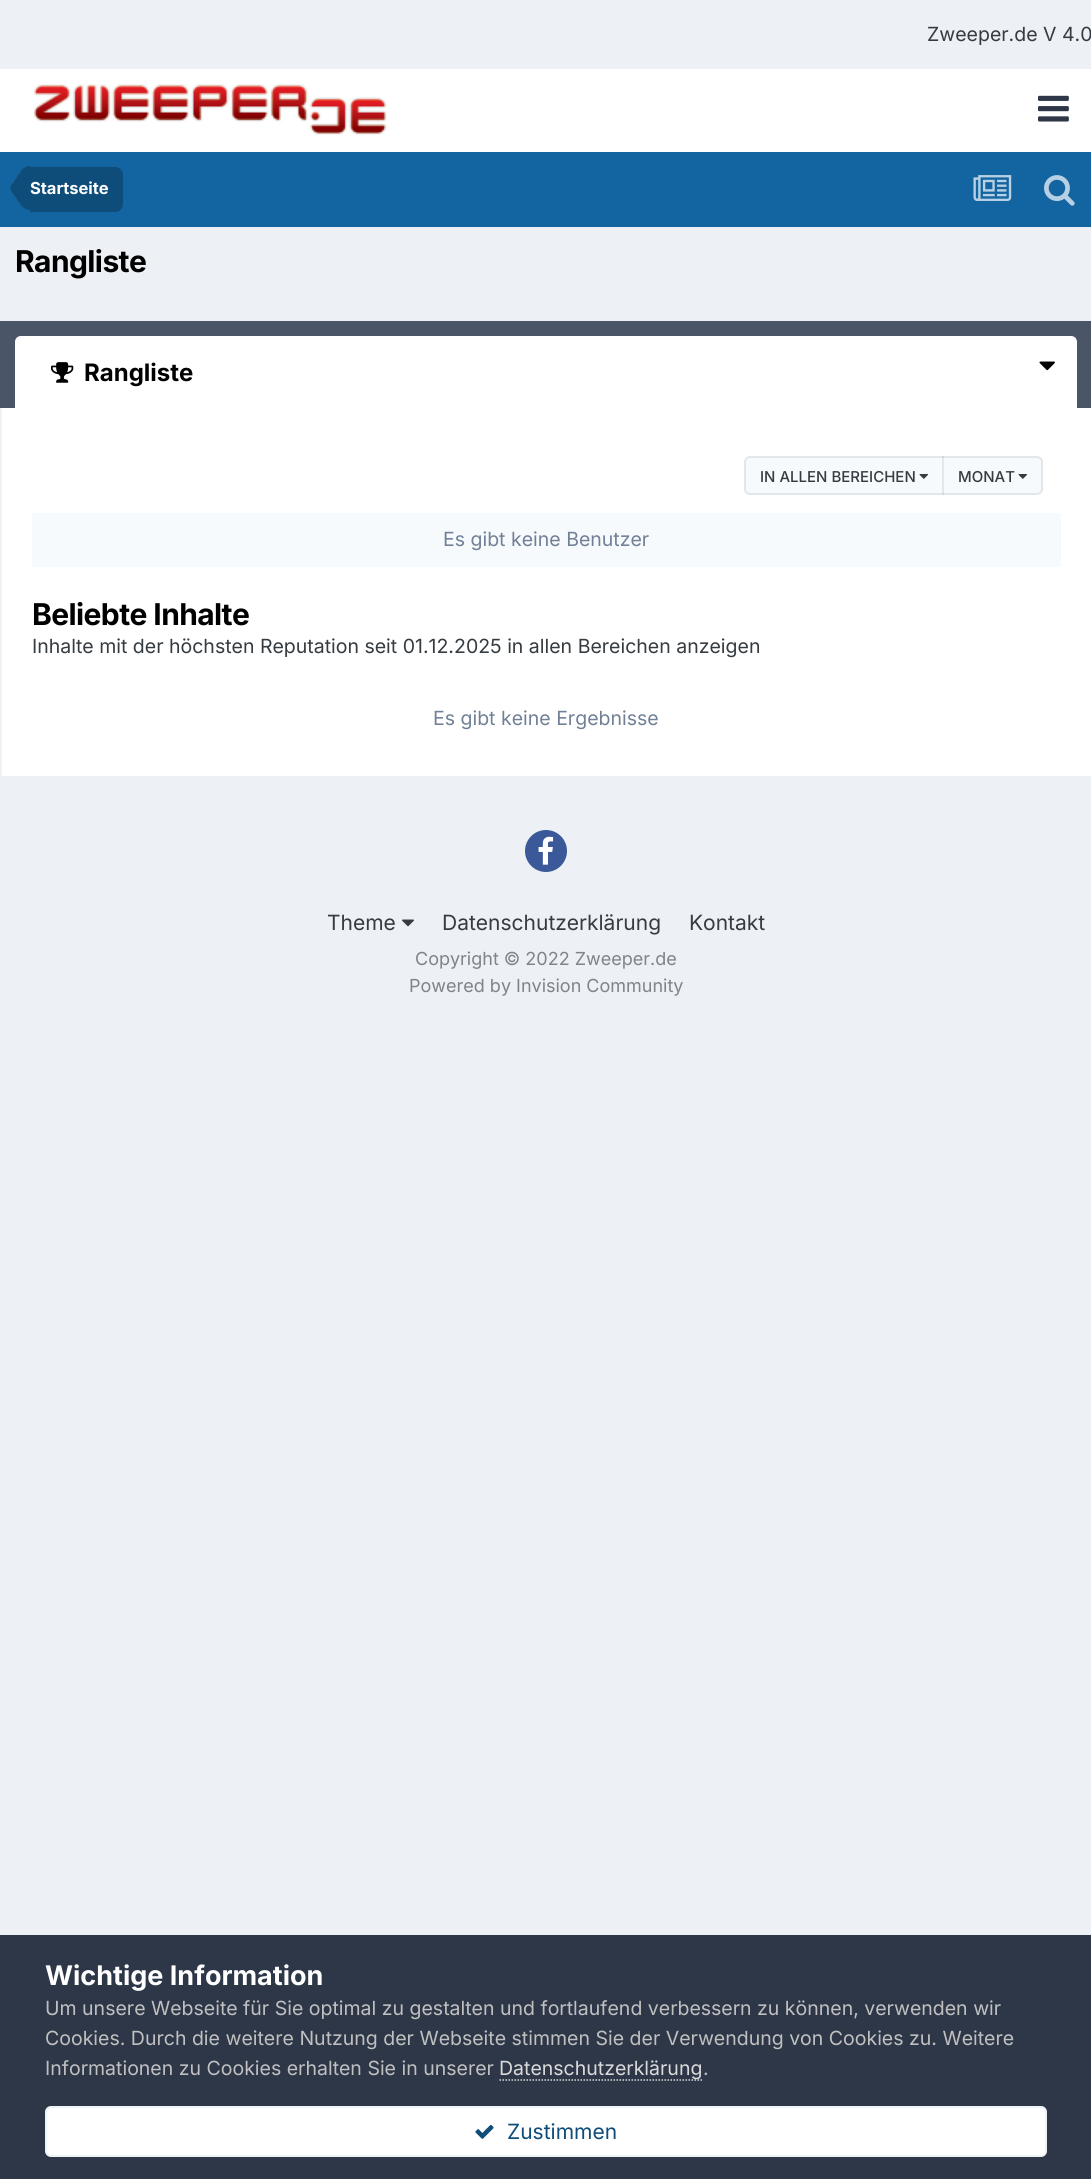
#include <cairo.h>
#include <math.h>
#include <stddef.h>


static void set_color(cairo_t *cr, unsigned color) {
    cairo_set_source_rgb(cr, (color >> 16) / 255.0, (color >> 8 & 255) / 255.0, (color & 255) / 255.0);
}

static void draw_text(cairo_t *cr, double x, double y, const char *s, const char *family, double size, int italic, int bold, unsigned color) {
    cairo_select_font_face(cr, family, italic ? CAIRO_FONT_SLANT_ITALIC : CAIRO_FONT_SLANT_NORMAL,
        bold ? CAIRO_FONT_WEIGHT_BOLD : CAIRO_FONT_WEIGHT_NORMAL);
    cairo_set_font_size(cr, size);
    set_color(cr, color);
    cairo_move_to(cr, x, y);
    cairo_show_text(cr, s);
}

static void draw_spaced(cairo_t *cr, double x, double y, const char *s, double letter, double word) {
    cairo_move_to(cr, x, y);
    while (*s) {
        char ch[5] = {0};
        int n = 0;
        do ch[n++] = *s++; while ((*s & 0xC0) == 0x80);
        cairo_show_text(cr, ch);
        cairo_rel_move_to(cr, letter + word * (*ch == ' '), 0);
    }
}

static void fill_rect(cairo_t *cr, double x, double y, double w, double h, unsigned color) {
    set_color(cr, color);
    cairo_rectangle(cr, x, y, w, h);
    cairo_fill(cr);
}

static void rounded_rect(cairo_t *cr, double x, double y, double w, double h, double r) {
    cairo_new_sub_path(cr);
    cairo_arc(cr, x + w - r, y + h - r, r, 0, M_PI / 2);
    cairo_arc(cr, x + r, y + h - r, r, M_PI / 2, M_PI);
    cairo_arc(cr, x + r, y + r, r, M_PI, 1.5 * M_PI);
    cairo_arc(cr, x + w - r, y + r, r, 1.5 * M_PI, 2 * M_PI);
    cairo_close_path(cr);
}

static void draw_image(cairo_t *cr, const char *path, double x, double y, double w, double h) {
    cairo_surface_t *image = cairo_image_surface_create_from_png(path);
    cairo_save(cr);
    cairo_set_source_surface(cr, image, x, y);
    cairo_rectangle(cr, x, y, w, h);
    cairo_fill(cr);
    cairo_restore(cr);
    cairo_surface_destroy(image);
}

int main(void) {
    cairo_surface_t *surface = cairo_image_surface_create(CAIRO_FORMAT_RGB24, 1091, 2179);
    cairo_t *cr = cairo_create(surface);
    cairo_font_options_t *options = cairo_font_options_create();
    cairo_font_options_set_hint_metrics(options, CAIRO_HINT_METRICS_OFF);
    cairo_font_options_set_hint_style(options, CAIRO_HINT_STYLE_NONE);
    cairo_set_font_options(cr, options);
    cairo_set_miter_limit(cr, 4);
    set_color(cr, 0xEDF0F4);
    cairo_paint(cr);
    draw_text(cr, 927, 41, "Zweeper.de V 4.0", "Inter", 19.5, 0, 0, 0x353C41);
    fill_rect(cr, 0, 69, 1091, 83, 0xFFFFFF);
    draw_image(cr, "assets/img1.png", 33, 84, 354, 51);
    draw_image(cr, "assets/img2.png", 1038, 95, 31, 27);
    fill_rect(cr, 0, 152, 1091, 75, 0x1265A1);
    set_color(cr, 0x0E4C79);
    cairo_new_path(cr);
    cairo_move_to(cr, 30, 167);
    cairo_line_to(cr, 115, 167);
    cairo_curve_to(cr, 119.5, 167, 123, 170.5, 123, 175);
    cairo_line_to(cr, 123, 204);
    cairo_curve_to(cr, 123, 208.5, 119.5, 212, 115, 212);
    cairo_line_to(cr, 30, 212);
    cairo_close_path(cr);
    cairo_fill(cr);
    cairo_new_path(cr);
    cairo_move_to(cr, 10.5, 190);
    cairo_line_to(cr, 10.5, 188);
    cairo_line_to(cr, 30, 188);
    cairo_line_to(cr, 30, 210);
    cairo_curve_to(cr, 27, 210, 23.5, 208.5, 21, 205);
    cairo_close_path(cr);
    cairo_move_to(cr, 30, 166);
    cairo_line_to(cr, 30, 188);
    cairo_line_to(cr, 10.5, 188);
    cairo_line_to(cr, 10.5, 186.5);
    cairo_line_to(cr, 22.5, 169);
    cairo_curve_to(cr, 25, 167, 27.5, 166, 30, 166);
    cairo_close_path(cr);
    cairo_fill(cr);
    draw_text(cr, 30, 194, "Startseite", "Inter", 16.5, 0, 1, 0xFFFFFF);
    draw_image(cr, "assets/img3.png", 973, 175, 39, 26);
    draw_image(cr, "assets/img4.png", 1044, 175, 31, 31);
    cairo_set_font_size(cr, 30);
    set_color(cr, 0x000000);
    draw_spaced(cr, 15, 272, "Rangliste", -0.6, 0);
    fill_rect(cr, 0, 321, 1091, 87, 0x4A5568);
    set_color(cr, 0xFFFFFF);
    cairo_new_path(cr);
    cairo_move_to(cr, 21, 336);
    cairo_line_to(cr, 1071, 336);
    cairo_curve_to(cr, 1074.5, 336, 1077, 338.5, 1077, 342);
    cairo_line_to(cr, 1077, 408);
    cairo_line_to(cr, 15, 408);
    cairo_line_to(cr, 15, 342);
    cairo_curve_to(cr, 15, 338.5, 17.5, 336, 21, 336);
    cairo_close_path(cr);
    cairo_fill(cr);
    draw_image(cr, "assets/img5.png", 51, 362, 23, 21);
    draw_text(cr, 84, 381, "Rangliste", "Inter", 24, 0, 1, 0x000000);
    draw_image(cr, "assets/img6.png", 1039, 361, 16, 10);
    fill_rect(cr, 2, 408, 1089, 368, 0xFFFFFF);
    fill_rect(cr, 0, 776, 1091, 2, 0xEDF2F7);
    fill_rect(cr, 0, 408, 2, 369, 0xEDF2F7);
    set_color(cr, 0xF7FAFC);
    cairo_new_path(cr);
    cairo_move_to(cr, 750, 456);
    cairo_line_to(cr, 944, 456);
    cairo_line_to(cr, 944, 495);
    cairo_line_to(cr, 750, 495);
    cairo_curve_to(cr, 746.5, 495, 744, 492.5, 744, 489);
    cairo_line_to(cr, 744, 462);
    cairo_curve_to(cr, 744, 458.5, 746.5, 456, 750, 456);
    cairo_close_path(cr);
    cairo_fill(cr);
    draw_image(cr, "assets/img7.png", 919, 474, 9, 5);
    cairo_new_path(cr);
    cairo_move_to(cr, 944, 456);
    cairo_line_to(cr, 1037, 456);
    cairo_curve_to(cr, 1040.5, 456, 1043, 458.5, 1043, 462);
    cairo_line_to(cr, 1043, 489);
    cairo_curve_to(cr, 1043, 492.5, 1040.5, 495, 1037, 495);
    cairo_line_to(cr, 944, 495);
    cairo_close_path(cr);
    cairo_fill(cr);
    fill_rect(cr, 942, 456, 2, 39, 0xE4E8EA);
    draw_image(cr, "assets/img7.png", 1018, 474, 9, 5);
    rounded_rect(cr, 745, 457, 297, 37, 5);
    cairo_set_source_rgba(cr, 0.208, 0.235, 0.255, 0.1);
    cairo_stroke(cr);
    draw_text(cr, 760, 482, "IN ALLEN BEREICHEN", "Inter Medium", 15, 0, 0, 0x353C41);
    draw_text(cr, 958, 482, "MONAT", "Inter Medium", 15, 0, 0, 0x353C41);
    fill_rect(cr, 32, 513, 1029, 54, 0xF7FAFC);
    draw_text(cr, 443, 546, "Es gibt keine Benutzer", "Inter", 19.5, 0, 0, 0x718096);
    cairo_select_font_face(cr, "Inter", CAIRO_FONT_SLANT_NORMAL, CAIRO_FONT_WEIGHT_BOLD);
    cairo_set_font_size(cr, 30);
    set_color(cr, 0x000000);
    draw_spaced(cr, 32, 625, "Beliebte Inhalte", -0.6, 0);
    draw_text(cr, 32, 653, "Inhalte mit der höchsten Reputation seit 01.12.2025 in allen Bereichen anzeigen", "Inter", 19.5, 0, 0, 0x353C41);
    draw_text(cr, 433, 725, "Es gibt keine Ergebnisse", "Inter", 19.5, 0, 0, 0x718096);
    set_color(cr, 0x3B5998);
    cairo_new_path(cr);
    cairo_arc(cr, 546, 851, 21, 0, 2 * M_PI);
    cairo_fill(cr);
    draw_image(cr, "assets/img8.png", 538, 836, 16, 29);
    draw_text(cr, 327, 930, "Theme", "Inter", 21, 0, 0, 0x353C41);
    draw_image(cr, "assets/img9.png", 402, 919, 12, 8);
    draw_text(cr, 442, 930, "Datenschutzerklärung", "Inter", 21, 0, 0, 0x353C41);
    draw_text(cr, 689, 930, "Kontakt", "Inter", 21, 0, 0, 0x353C41);
    draw_text(cr, 415, 965, "Copyright © 2022 Zweeper.de", "Inter", 18, 0, 0, 0x7F8489);
    draw_text(cr, 409, 992, "Powered by Invision Community", "Inter", 18, 0, 0, 0x7F8489);
    fill_rect(cr, 0, 1935, 1091, 244, 0x2D3748);
    draw_text(cr, 45, 1985, "Wichtige Information", "Inter", 27, 0, 1, 0xFFFFFF);
    draw_text(cr, 45, 2015, "Um unsere Webseite für Sie optimal zu gestalten und fortlaufend verbessern zu können, verwenden wir", "Inter", 19.5, 0, 0, 0xC0C0C0);
    draw_text(cr, 45, 2045, "Cookies. Durch die weitere Nutzung der Webseite stimmen Sie der Verwendung von Cookies zu. Weitere", "Inter", 19.5, 0, 0, 0xC0C0C0);
    draw_text(cr, 45, 2075, "Informationen zu Cookies erhalten Sie in unserer", "Inter", 19.5, 0, 0, 0xC0C0C0);
    cairo_new_path(cr);
    cairo_move_to(cr, 499.5, 2080);
    cairo_line_to(cr, 703.5, 2080);
    set_color(cr, 0xDADADA);
    cairo_set_line_width(cr, 1.5);
    cairo_set_dash(cr, (double[]){1.5, 1.5}, 2, 0);
    cairo_stroke(cr);
    draw_text(cr, 499, 2075, "Datenschutzerklärung", "Inter", 19.5, 0, 0, 0xDADADA);
    draw_text(cr, 703, 2075, ".", "Inter", 19.5, 0, 0, 0xC0C0C0);
    set_color(cr, 0xFFFFFF);
    rounded_rect(cr, 45, 2106, 1002, 51, 6);
    cairo_fill(cr);
    rounded_rect(cr, 46, 2107, 1000, 49, 5);
    cairo_set_source_rgba(cr, 0.055, 0.298, 0.475, 0.07);
    cairo_set_line_width(cr, 2);
    cairo_set_dash(cr, NULL, 0, 0);
    cairo_stroke(cr);
    draw_image(cr, "assets/img10.png", 475, 2124, 19, 15);
    draw_text(cr, 507, 2139, "Zustimmen", "Inter", 21, 0, 0, 0x0E4C79);
    cairo_surface_write_to_png(surface, "output.png");
    cairo_font_options_destroy(options);
    cairo_destroy(cr);
    cairo_surface_destroy(surface);
    return 0;
}
